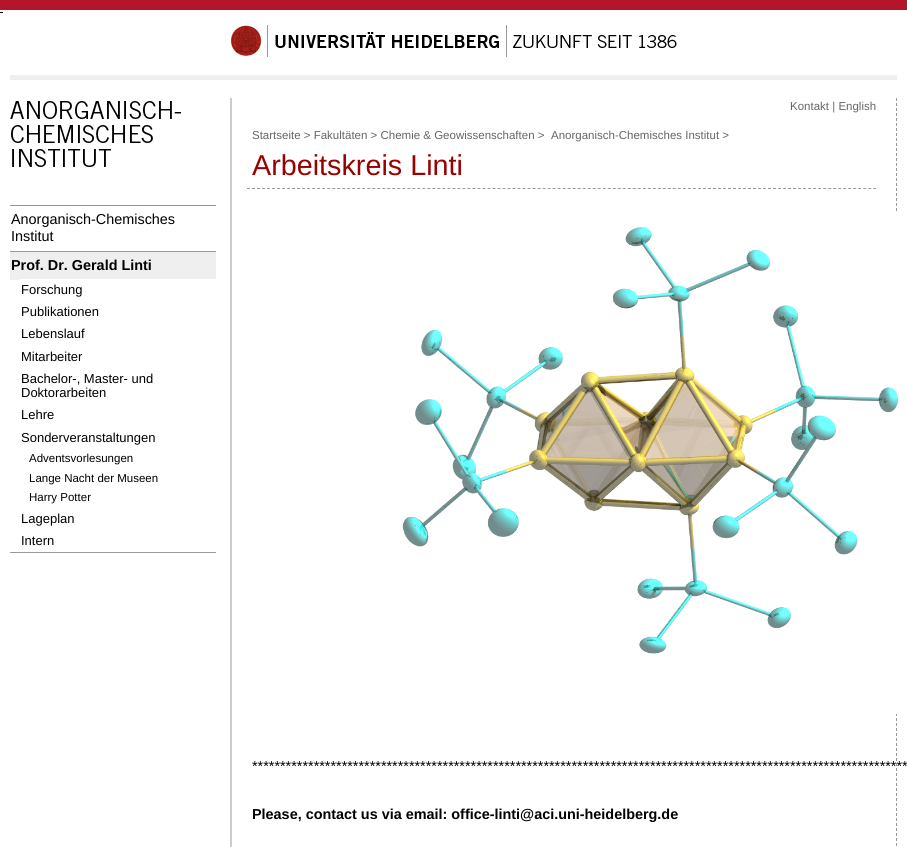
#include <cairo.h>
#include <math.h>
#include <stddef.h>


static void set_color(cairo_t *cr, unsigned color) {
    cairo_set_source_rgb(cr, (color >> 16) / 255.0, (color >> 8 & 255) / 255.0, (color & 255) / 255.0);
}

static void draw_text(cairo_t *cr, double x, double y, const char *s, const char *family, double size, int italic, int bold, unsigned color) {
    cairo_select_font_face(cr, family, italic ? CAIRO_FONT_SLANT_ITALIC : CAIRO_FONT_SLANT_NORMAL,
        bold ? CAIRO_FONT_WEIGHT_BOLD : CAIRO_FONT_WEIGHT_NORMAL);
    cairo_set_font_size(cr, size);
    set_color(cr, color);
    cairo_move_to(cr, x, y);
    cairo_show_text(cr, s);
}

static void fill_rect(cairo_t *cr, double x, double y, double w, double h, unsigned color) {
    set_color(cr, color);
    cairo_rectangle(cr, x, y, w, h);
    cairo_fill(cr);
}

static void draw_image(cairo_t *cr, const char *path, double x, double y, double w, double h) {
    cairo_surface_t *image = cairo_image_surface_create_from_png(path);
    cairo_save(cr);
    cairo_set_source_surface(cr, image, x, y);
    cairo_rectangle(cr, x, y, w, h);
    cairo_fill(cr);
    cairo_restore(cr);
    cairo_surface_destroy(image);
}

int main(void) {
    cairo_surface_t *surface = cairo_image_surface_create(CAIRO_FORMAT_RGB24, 907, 847);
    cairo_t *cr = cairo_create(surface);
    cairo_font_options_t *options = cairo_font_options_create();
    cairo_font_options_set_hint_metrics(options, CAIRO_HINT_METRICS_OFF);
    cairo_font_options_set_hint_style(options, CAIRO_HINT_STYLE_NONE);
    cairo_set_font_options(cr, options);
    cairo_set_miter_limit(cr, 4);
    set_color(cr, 0xFFFFFF);
    cairo_paint(cr);
    fill_rect(cr, 0, 0, 907, 10, 0xB5152B);
    fill_rect(cr, 0, 12, 3, 1, 0x000000);
    draw_image(cr, "assets/img1.png", 230, 25, 447, 32);
    fill_rect(cr, 10, 75, 887, 5, 0xEFEFEF);
    draw_image(cr, "assets/img2.png", 10, 101, 171, 66);
    fill_rect(cr, 10, 205, 206, 1, 0x999999);
    draw_text(cr, 11, 224, "Anorganisch-Chemisches", "Liberation Sans", 14.4, 0, 0, 0x000000);
    draw_text(cr, 11, 241, "Institut", "Liberation Sans", 14.4, 0, 0, 0x000000);
    fill_rect(cr, 10, 252, 206, 28, 0xEFEFEF);
    fill_rect(cr, 10, 251, 206, 1, 0x999999);
    draw_text(cr, 11, 270, "Prof. Dr. Gerald Linti", "Liberation Sans", 14.4, 0, 1, 0x000000);
    fill_rect(cr, 20, 279, 196, 1, 0xFFFFFF);
    draw_text(cr, 21, 294, "Forschung", "Liberation Sans", 13, 0, 0, 0x000000);
    draw_text(cr, 21, 316, "Publikationen", "Liberation Sans", 13, 0, 0, 0x000000);
    draw_text(cr, 21, 338, "Lebenslauf", "Liberation Sans", 13, 0, 0, 0x000000);
    draw_text(cr, 21, 361, "Mitarbeiter", "Liberation Sans", 13, 0, 0, 0x000000);
    draw_text(cr, 21, 383, "Bachelor-, Master- und", "Liberation Sans", 13, 0, 0, 0x000000);
    draw_text(cr, 21, 397, "Doktorarbeiten", "Liberation Sans", 13, 0, 0, 0x000000);
    draw_text(cr, 21, 419, "Lehre", "Liberation Sans", 13, 0, 0, 0x000000);
    draw_text(cr, 21, 442, "Sonderveranstaltungen", "Liberation Sans", 13, 0, 0, 0x000000);
    draw_text(cr, 29, 462, "Adventsvorlesungen", "Liberation Sans", 11.5, 0, 0, 0x000000);
    draw_text(cr, 29, 482, "Lange Nacht der Museen", "Liberation Sans", 11.5, 0, 0, 0x000000);
    draw_text(cr, 29, 501, "Harry Potter", "Liberation Sans", 11.5, 0, 0, 0x000000);
    draw_text(cr, 21, 523, "Lageplan", "Liberation Sans", 13, 0, 0, 0x000000);
    draw_text(cr, 21, 545, "Intern", "Liberation Sans", 13, 0, 0, 0x000000);
    fill_rect(cr, 10, 552, 206, 1, 0x999999);
    cairo_new_path(cr);
    cairo_move_to(cr, 896.5, 98);
    cairo_line_to(cr, 896.5, 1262);
    cairo_set_line_width(cr, 1);
    cairo_set_dash(cr, (double[]){3, 2}, 2, 0);
    cairo_stroke(cr);
    fill_rect(cr, 230, 98, 2, 749, 0xCCCCCC);
    draw_text(cr, 790, 110, "Kontakt | English", "Liberation Sans", 11.5, 0, 0, 0x666666);
    draw_text(cr, 252, 139, "Startseite > Fakultäten > Chemie & Geowissenschaften >", "Liberation Sans", 11.5, 0, 0, 0x666666);
    draw_text(cr, 551, 139, "Anorganisch-Chemisches Institut >", "Liberation Sans", 11.5, 0, 0, 0x666666);
    cairo_new_path(cr);
    cairo_move_to(cr, 247, 188.5);
    cairo_line_to(cr, 876, 188.5);
    set_color(cr, 0x999999);
    cairo_set_dash(cr, (double[]){3, 2.01}, 2, 0);
    cairo_stroke(cr);
    draw_text(cr, 252, 175, "Arbeitskreis Linti", "Liberation Sans", 28.75, 0, 0, 0x990000);
    draw_image(cr, "assets/img3.png", 402, 213, 496, 501);
    draw_text(cr, 252, 771, "*********************************************************************************************************************", "Liberation Sans", 14.4, 0, 0, 0x000000);
    draw_text(cr, 252, 819, "Please, contact us via email: office-linti@aci.uni-heidelberg.de", "Liberation Sans", 14.4, 0, 1, 0x000000);
    cairo_surface_write_to_png(surface, "output.png");
    cairo_font_options_destroy(options);
    cairo_destroy(cr);
    cairo_surface_destroy(surface);
    return 0;
}
